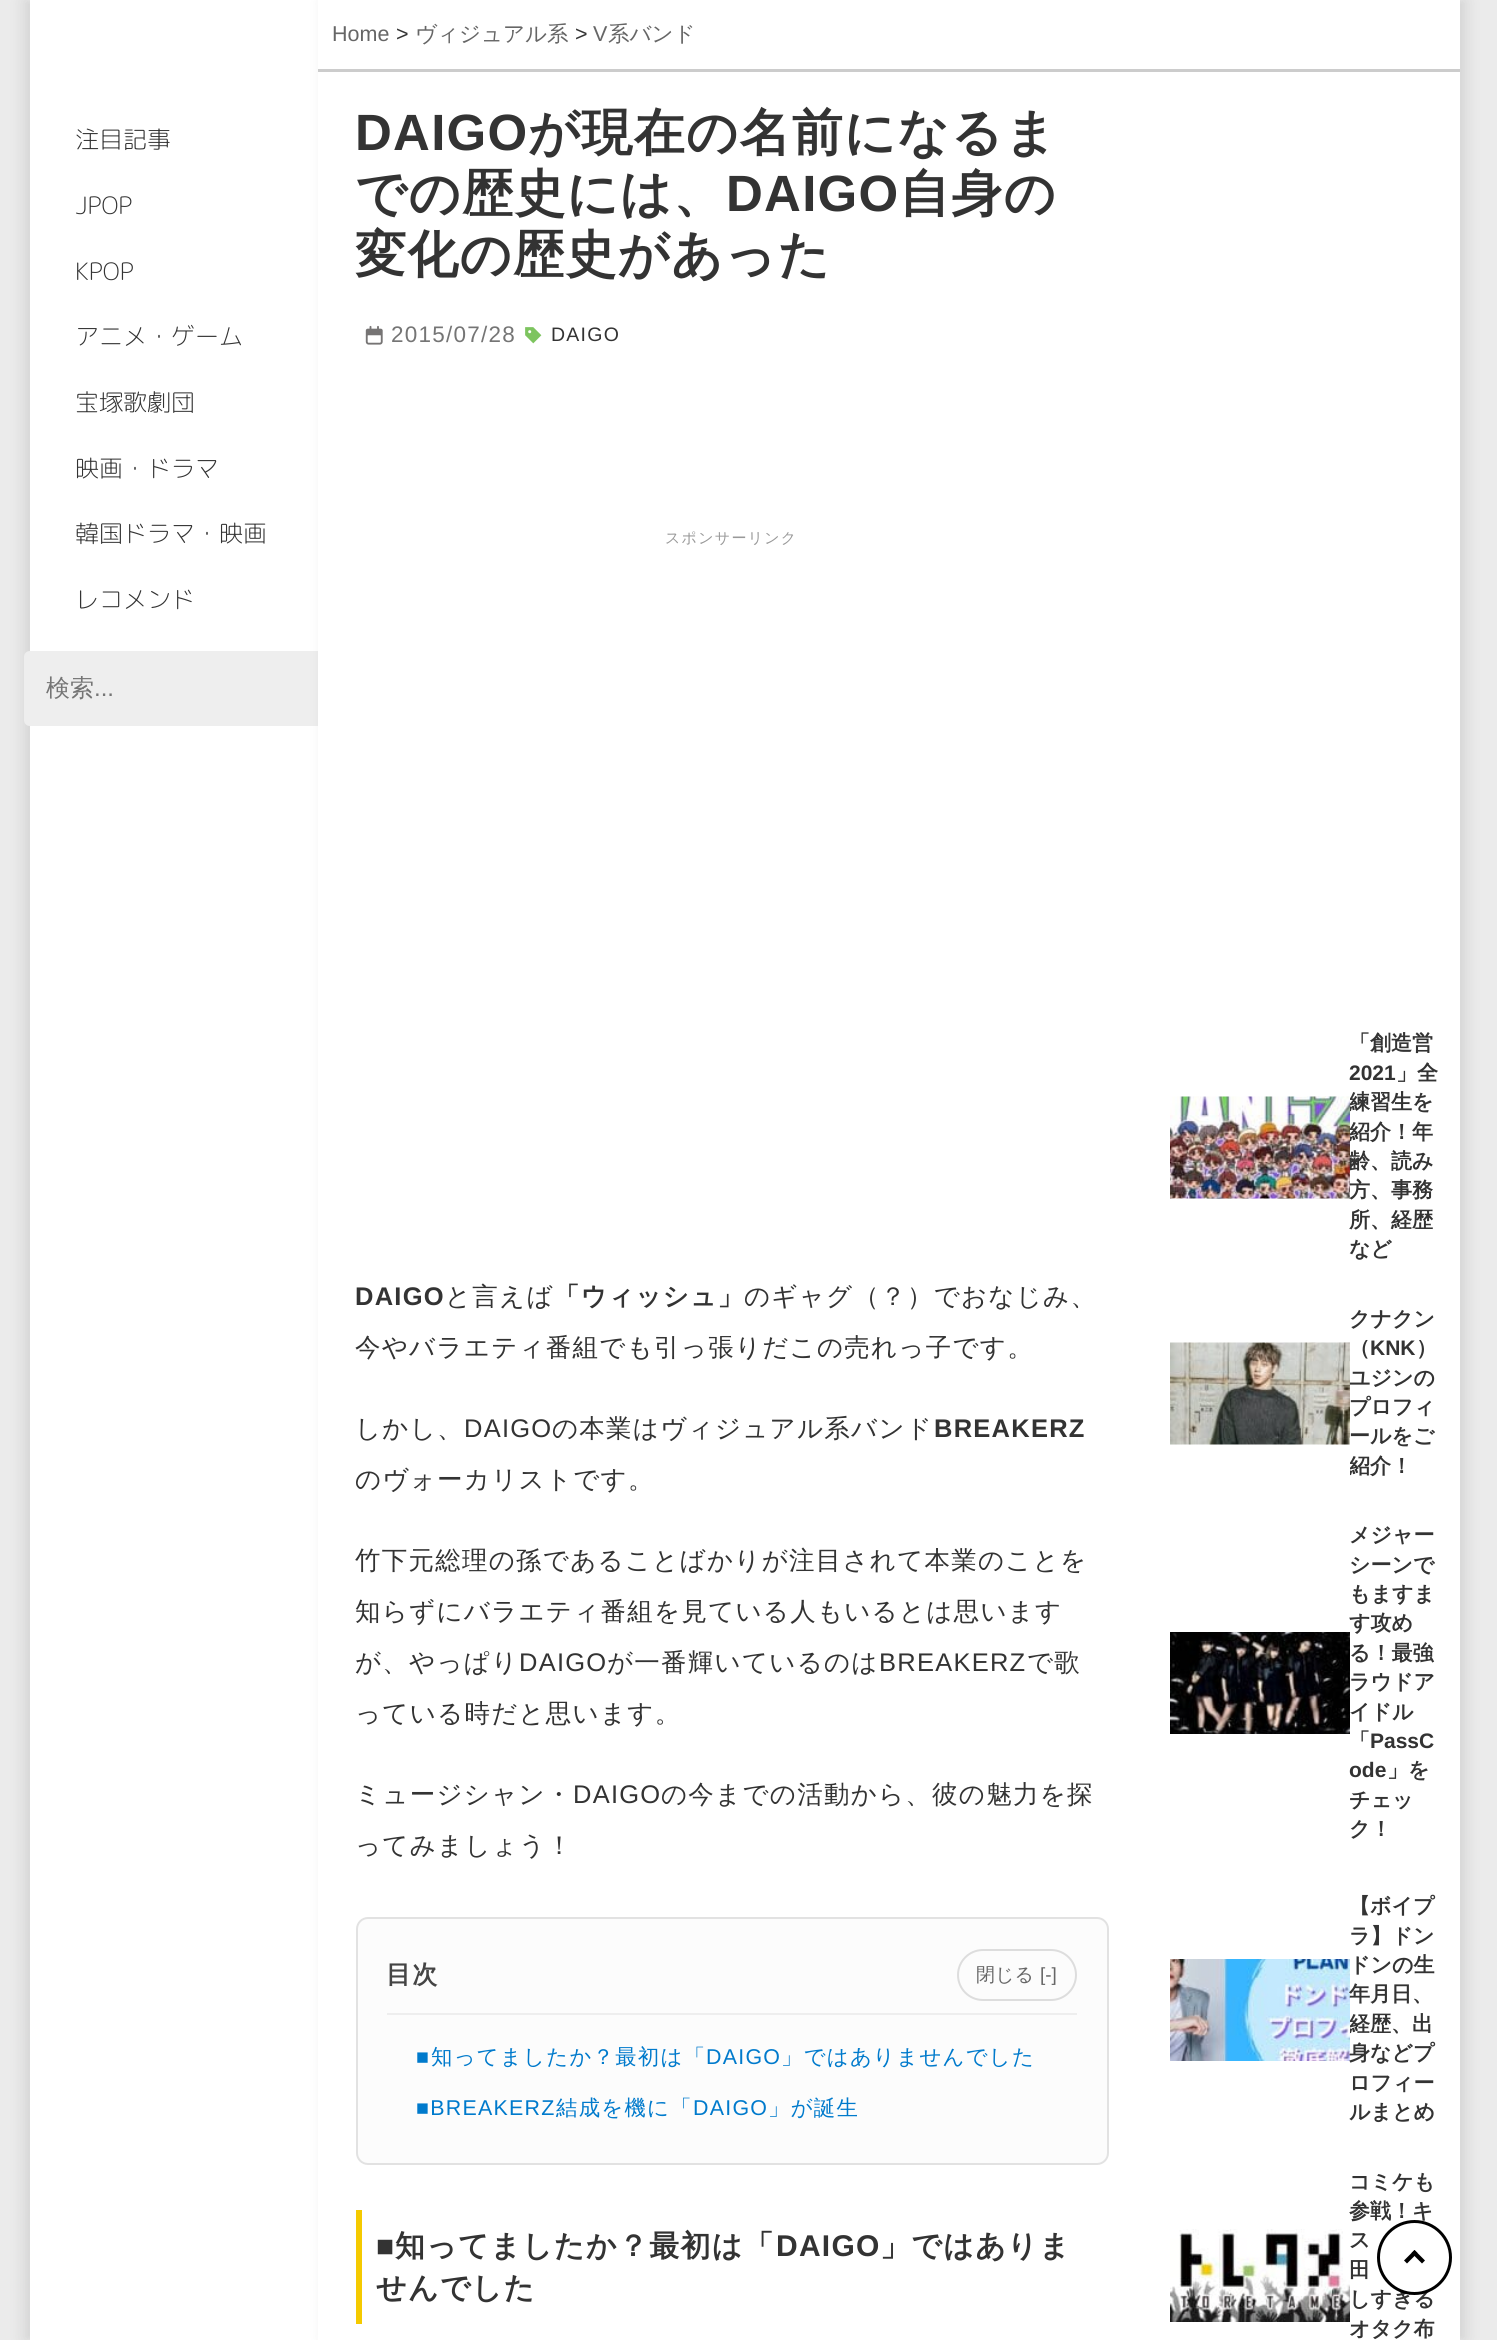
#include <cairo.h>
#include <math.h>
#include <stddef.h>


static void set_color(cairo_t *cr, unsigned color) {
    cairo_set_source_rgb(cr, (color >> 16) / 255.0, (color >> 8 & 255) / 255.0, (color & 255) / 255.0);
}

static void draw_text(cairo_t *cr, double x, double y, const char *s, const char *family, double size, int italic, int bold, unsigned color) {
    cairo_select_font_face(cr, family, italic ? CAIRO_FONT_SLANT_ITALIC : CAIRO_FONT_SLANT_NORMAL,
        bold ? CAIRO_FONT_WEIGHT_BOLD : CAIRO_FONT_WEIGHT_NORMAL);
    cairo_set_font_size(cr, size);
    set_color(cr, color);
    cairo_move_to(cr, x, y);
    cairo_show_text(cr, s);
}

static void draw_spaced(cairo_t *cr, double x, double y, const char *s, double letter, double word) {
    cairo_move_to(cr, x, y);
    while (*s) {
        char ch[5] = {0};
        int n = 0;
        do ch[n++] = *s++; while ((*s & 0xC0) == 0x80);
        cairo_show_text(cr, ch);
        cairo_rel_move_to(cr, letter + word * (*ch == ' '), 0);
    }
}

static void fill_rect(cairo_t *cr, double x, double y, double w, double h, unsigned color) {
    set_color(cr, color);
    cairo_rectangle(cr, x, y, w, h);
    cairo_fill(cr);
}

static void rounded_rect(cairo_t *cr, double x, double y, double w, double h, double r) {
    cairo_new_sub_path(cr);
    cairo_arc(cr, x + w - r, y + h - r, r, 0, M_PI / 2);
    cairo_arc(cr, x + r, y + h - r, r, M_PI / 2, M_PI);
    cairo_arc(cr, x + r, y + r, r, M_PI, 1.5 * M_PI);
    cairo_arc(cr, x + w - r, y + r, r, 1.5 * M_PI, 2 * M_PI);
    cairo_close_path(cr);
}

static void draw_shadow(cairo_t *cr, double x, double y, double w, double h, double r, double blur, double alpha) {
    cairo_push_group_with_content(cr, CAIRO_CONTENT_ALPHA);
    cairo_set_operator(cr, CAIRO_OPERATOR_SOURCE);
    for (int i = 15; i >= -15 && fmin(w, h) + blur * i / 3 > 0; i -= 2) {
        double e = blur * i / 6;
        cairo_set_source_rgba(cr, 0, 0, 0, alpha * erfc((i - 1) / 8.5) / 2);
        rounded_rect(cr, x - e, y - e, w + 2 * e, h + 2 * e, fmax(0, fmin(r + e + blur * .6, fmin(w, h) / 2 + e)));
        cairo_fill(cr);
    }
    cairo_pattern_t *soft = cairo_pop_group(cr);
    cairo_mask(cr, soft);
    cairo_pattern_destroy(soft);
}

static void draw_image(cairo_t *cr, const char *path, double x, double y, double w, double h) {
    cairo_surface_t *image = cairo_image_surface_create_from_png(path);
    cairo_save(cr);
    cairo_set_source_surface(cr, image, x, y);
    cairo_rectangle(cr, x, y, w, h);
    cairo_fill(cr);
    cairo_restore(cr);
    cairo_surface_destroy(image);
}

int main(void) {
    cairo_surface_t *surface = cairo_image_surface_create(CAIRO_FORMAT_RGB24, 1497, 2340);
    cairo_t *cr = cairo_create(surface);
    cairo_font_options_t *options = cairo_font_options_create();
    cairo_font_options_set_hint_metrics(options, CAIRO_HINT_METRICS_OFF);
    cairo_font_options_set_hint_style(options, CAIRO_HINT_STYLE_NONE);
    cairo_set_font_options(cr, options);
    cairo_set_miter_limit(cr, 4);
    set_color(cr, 0xEBEBEB);
    cairo_paint(cr);
    set_color(cr, 0x000000);
    draw_shadow(cr, 24, 0, 288, 2340, 0, 7.5, 0.1);
    fill_rect(cr, 30, 0, 288, 2340, 0xFFFFFF);
    draw_text(cr, 75, 148, "注目記事", "Rounded Mplus 1c Light", 24, 0, 0, 0x333333);
    draw_text(cr, 75, 214, "JPOP", "Rounded Mplus 1c Light", 24, 0, 0, 0x333333);
    draw_text(cr, 75, 280, "KPOP", "Rounded Mplus 1c Light", 24, 0, 0, 0x333333);
    draw_text(cr, 75, 345, "アニメ・ゲーム", "Rounded Mplus 1c Light", 24, 0, 0, 0x333333);
    draw_text(cr, 75, 411, "宝塚歌劇団", "Rounded Mplus 1c Light", 24, 0, 0, 0x333333);
    draw_text(cr, 75, 477, "映画・ドラマ", "Rounded Mplus 1c Light", 24, 0, 0, 0x333333);
    draw_text(cr, 75, 542, "韓国ドラマ・映画", "Rounded Mplus 1c Light", 24, 0, 0, 0x333333);
    draw_text(cr, 75, 608, "レコメンド", "Rounded Mplus 1c Light", 24, 0, 0, 0x333333);
    set_color(cr, 0xEEEEEE);
    cairo_new_path(cr);
    cairo_move_to(cr, 30, 651);
    cairo_line_to(cr, 324, 651);
    cairo_line_to(cr, 324, 726);
    cairo_line_to(cr, 30, 726);
    cairo_curve_to(cr, 26.5, 726, 24, 723.5, 24, 720);
    cairo_line_to(cr, 24, 657);
    cairo_curve_to(cr, 24, 653.5, 26.5, 651, 30, 651);
    cairo_close_path(cr);
    cairo_fill(cr);
    draw_text(cr, 46, 696, "検索", "WenQuanYi Zen Hei Medium", 24, 0, 0, 0x757575);
    draw_text(cr, 94, 696, "...", "Liberation Sans", 24, 0, 0, 0x757575);
    set_color(cr, 0x000000);
    draw_shadow(cr, 324, 0, 1142, 2340, 0, 7.5, 0.1);
    fill_rect(cr, 318, 0, 1142, 2340, 0xFFFFFF);
    fill_rect(cr, 318, 69, 1142, 3, 0xCCCCCC);
    draw_text(cr, 332, 41, "Home", "Liberation Sans", 21.5, 0, 0, 0x666666);
    draw_text(cr, 396, 41, ">", "Liberation Sans", 21.5, 0, 0, 0x333333);
    draw_text(cr, 415, 41, "ヴィジュアル系", "WenQuanYi Zen Hei Medium", 21.5, 0, 0, 0x666666);
    draw_text(cr, 575, 41, ">", "Liberation Sans", 21.5, 0, 0, 0x333333);
    draw_text(cr, 593, 41, "V", "Liberation Sans", 21.5, 0, 0, 0x666666);
    draw_text(cr, 608, 41, "系バンド", "WenQuanYi Zen Hei Medium", 21.5, 0, 0, 0x666666);
    cairo_select_font_face(cr, "Liberation Sans", CAIRO_FONT_SLANT_NORMAL, CAIRO_FONT_WEIGHT_BOLD);
    cairo_set_font_size(cr, 51);
    set_color(cr, 0x333333);
    draw_spaced(cr, 355, 150, "DAIGO", 1.25, 0);
    cairo_select_font_face(cr, "WenQuanYi Zen Hei", CAIRO_FONT_SLANT_NORMAL, CAIRO_FONT_WEIGHT_BOLD);
    draw_spaced(cr, 528, 150, "が現在の名前になるま", 1.25, 0);
    draw_spaced(cr, 355, 211, "での歴史には、", 1.25, 0);
    cairo_select_font_face(cr, "Liberation Sans", CAIRO_FONT_SLANT_NORMAL, CAIRO_FONT_WEIGHT_BOLD);
    draw_spaced(cr, 726, 211, "DAIGO", 1.25, 0);
    cairo_select_font_face(cr, "WenQuanYi Zen Hei", CAIRO_FONT_SLANT_NORMAL, CAIRO_FONT_WEIGHT_BOLD);
    draw_spaced(cr, 899, 211, "自身の", 1.25, 0);
    draw_spaced(cr, 355, 272, "変化の歴史があった", 1.25, 0);
    draw_image(cr, "assets/img1.png", 365, 325, 18, 20);
    cairo_select_font_face(cr, "Liberation Sans", CAIRO_FONT_SLANT_NORMAL, CAIRO_FONT_WEIGHT_NORMAL);
    cairo_set_font_size(cr, 22.5);
    set_color(cr, 0x757575);
    draw_spaced(cr, 391, 342, "2015/07/28", 1.25, 0);
    draw_image(cr, "assets/img2.png", 525, 327, 17, 17);
    cairo_set_font_size(cr, 19.5);
    set_color(cr, 0x333333);
    draw_spaced(cr, 551, 341, "DAIGO", 1.25, 0);
    cairo_select_font_face(cr, "WenQuanYi Zen Hei Medium", CAIRO_FONT_SLANT_NORMAL, CAIRO_FONT_WEIGHT_NORMAL);
    cairo_set_font_size(cr, 15);
    set_color(cr, 0x999999);
    draw_spaced(cr, 665, 543, "スポンサーリンク", 1.25, 0);
    cairo_select_font_face(cr, "Liberation Sans", CAIRO_FONT_SLANT_NORMAL, CAIRO_FONT_WEIGHT_BOLD);
    cairo_set_font_size(cr, 25.5);
    set_color(cr, 0x333333);
    draw_spaced(cr, 355, 1305, "DAIGO", 1.25, 0);
    cairo_select_font_face(cr, "WenQuanYi Zen Hei Medium", CAIRO_FONT_SLANT_NORMAL, CAIRO_FONT_WEIGHT_NORMAL);
    draw_spaced(cr, 445, 1305, "と言えば", 1.25, 0);
    cairo_select_font_face(cr, "WenQuanYi Zen Hei", CAIRO_FONT_SLANT_NORMAL, CAIRO_FONT_WEIGHT_BOLD);
    draw_spaced(cr, 554, 1305, "「ウィッシュ」", 1.25, 0);
    cairo_select_font_face(cr, "WenQuanYi Zen Hei Medium", CAIRO_FONT_SLANT_NORMAL, CAIRO_FONT_WEIGHT_NORMAL);
    draw_spaced(cr, 744, 1305, "のギャグ（？）でおなじみ、", 1.25, 0);
    draw_spaced(cr, 355, 1356, "今やバラエティ番組でも引っ張りだこの売れっ子です。", 1.25, 0);
    draw_spaced(cr, 355, 1437, "しかし、", 1.25, 0);
    cairo_select_font_face(cr, "Liberation Sans", CAIRO_FONT_SLANT_NORMAL, CAIRO_FONT_WEIGHT_NORMAL);
    draw_spaced(cr, 464, 1437, "DAIGO", 1.25, 0);
    cairo_select_font_face(cr, "WenQuanYi Zen Hei Medium", CAIRO_FONT_SLANT_NORMAL, CAIRO_FONT_WEIGHT_NORMAL);
    draw_spaced(cr, 552, 1437, "の本業はヴィジュアル系バンド", 1.25, 0);
    cairo_select_font_face(cr, "Liberation Sans", CAIRO_FONT_SLANT_NORMAL, CAIRO_FONT_WEIGHT_BOLD);
    draw_spaced(cr, 934, 1437, "BREAKERZ", 1.25, 0);
    cairo_select_font_face(cr, "WenQuanYi Zen Hei Medium", CAIRO_FONT_SLANT_NORMAL, CAIRO_FONT_WEIGHT_NORMAL);
    draw_spaced(cr, 355, 1488, "のヴォーカリストです。", 1.25, 0);
    draw_spaced(cr, 355, 1569, "竹下元総理の孫であることばかりが注目されて本業のことを", 1.25, 0);
    draw_spaced(cr, 355, 1620, "知らずにバラエティ番組を見ている人もいるとは思います", 1.25, 0);
    draw_spaced(cr, 355, 1671, "が、やっぱり", 1.25, 0);
    cairo_select_font_face(cr, "Liberation Sans", CAIRO_FONT_SLANT_NORMAL, CAIRO_FONT_WEIGHT_NORMAL);
    draw_spaced(cr, 519, 1671, "DAIGO", 1.25, 0);
    cairo_select_font_face(cr, "WenQuanYi Zen Hei Medium", CAIRO_FONT_SLANT_NORMAL, CAIRO_FONT_WEIGHT_NORMAL);
    draw_spaced(cr, 607, 1671, "が一番輝いているのは", 1.25, 0);
    cairo_select_font_face(cr, "Liberation Sans", CAIRO_FONT_SLANT_NORMAL, CAIRO_FONT_WEIGHT_NORMAL);
    draw_spaced(cr, 879, 1671, "BREAKERZ", 1.25, 0);
    cairo_select_font_face(cr, "WenQuanYi Zen Hei Medium", CAIRO_FONT_SLANT_NORMAL, CAIRO_FONT_WEIGHT_NORMAL);
    draw_spaced(cr, 1027, 1671, "で歌", 1.25, 0);
    draw_spaced(cr, 355, 1722, "っている時だと思います。", 1.25, 0);
    draw_spaced(cr, 355, 1803, "ミュージシャン・", 1.25, 0);
    cairo_select_font_face(cr, "Liberation Sans", CAIRO_FONT_SLANT_NORMAL, CAIRO_FONT_WEIGHT_NORMAL);
    draw_spaced(cr, 573, 1803, "DAIGO", 1.25, 0);
    cairo_select_font_face(cr, "WenQuanYi Zen Hei Medium", CAIRO_FONT_SLANT_NORMAL, CAIRO_FONT_WEIGHT_NORMAL);
    draw_spaced(cr, 661, 1803, "の今までの活動から、彼の魅力を探", 1.25, 0);
    draw_spaced(cr, 355, 1854, "ってみましょう！", 1.25, 0);
    set_color(cr, 0xFCFCFC);
    rounded_rect(cr, 357, 1918, 751, 246, 11);
    cairo_fill_preserve(cr);
    set_color(cr, 0xE2E2E2);
    cairo_stroke(cr);
    fill_rect(cr, 387, 2013, 690, 2, 0xEEEEEE);
    cairo_select_font_face(cr, "WenQuanYi Zen Hei", CAIRO_FONT_SLANT_NORMAL, CAIRO_FONT_WEIGHT_BOLD);
    cairo_set_font_size(cr, 25);
    set_color(cr, 0x444444);
    draw_spaced(cr, 386, 1983, "目次", 1.25, 0);
    rounded_rect(cr, 958, 1950, 118, 50, 25);
    set_color(cr, 0xDDDDDD);
    cairo_stroke(cr);
    draw_text(cr, 976, 1981, "閉じる", "WenQuanYi Zen Hei Medium", 19, 0, 0, 0x666666);
    draw_text(cr, 1040, 1981, "[-]", "Liberation Sans", 19, 0, 0, 0x666666);
    cairo_set_font_size(cr, 21.4);
    set_color(cr, 0x007ACC);
    draw_spaced(cr, 416, 2064, "■", 1.25, 0);
    cairo_select_font_face(cr, "WenQuanYi Zen Hei Medium", CAIRO_FONT_SLANT_NORMAL, CAIRO_FONT_WEIGHT_NORMAL);
    draw_spaced(cr, 431, 2064, "知ってましたか？最初は「", 1.25, 0);
    cairo_select_font_face(cr, "Liberation Sans", CAIRO_FONT_SLANT_NORMAL, CAIRO_FONT_WEIGHT_NORMAL);
    draw_spaced(cr, 706, 2064, "DAIGO", 1.25, 0);
    cairo_select_font_face(cr, "WenQuanYi Zen Hei Medium", CAIRO_FONT_SLANT_NORMAL, CAIRO_FONT_WEIGHT_NORMAL);
    draw_spaced(cr, 781, 2064, "」ではありませんでした", 1.25, 0);
    cairo_select_font_face(cr, "Liberation Sans", CAIRO_FONT_SLANT_NORMAL, CAIRO_FONT_WEIGHT_NORMAL);
    draw_spaced(cr, 416, 2115, "■BREAKERZ", 1.25, 0);
    cairo_select_font_face(cr, "WenQuanYi Zen Hei Medium", CAIRO_FONT_SLANT_NORMAL, CAIRO_FONT_WEIGHT_NORMAL);
    draw_spaced(cr, 556, 2115, "結成を機に「", 1.25, 0);
    cairo_select_font_face(cr, "Liberation Sans", CAIRO_FONT_SLANT_NORMAL, CAIRO_FONT_WEIGHT_NORMAL);
    draw_spaced(cr, 693, 2115, "DAIGO", 1.25, 0);
    cairo_select_font_face(cr, "WenQuanYi Zen Hei Medium", CAIRO_FONT_SLANT_NORMAL, CAIRO_FONT_WEIGHT_NORMAL);
    draw_spaced(cr, 768, 2115, "」が誕生", 1.25, 0);
    fill_rect(cr, 356, 2210, 6, 114, 0xF5CA00);
    cairo_select_font_face(cr, "Liberation Sans", CAIRO_FONT_SLANT_NORMAL, CAIRO_FONT_WEIGHT_BOLD);
    cairo_set_font_size(cr, 30);
    set_color(cr, 0x333333);
    draw_spaced(cr, 376, 2256, "■", 1.25, 0);
    cairo_select_font_face(cr, "WenQuanYi Zen Hei", CAIRO_FONT_SLANT_NORMAL, CAIRO_FONT_WEIGHT_BOLD);
    draw_spaced(cr, 395, 2256, "知ってましたか？最初は「", 1.25, 0);
    cairo_select_font_face(cr, "Liberation Sans", CAIRO_FONT_SLANT_NORMAL, CAIRO_FONT_WEIGHT_BOLD);
    draw_spaced(cr, 776, 2256, "DAIGO", 1.25, 0);
    cairo_select_font_face(cr, "WenQuanYi Zen Hei", CAIRO_FONT_SLANT_NORMAL, CAIRO_FONT_WEIGHT_BOLD);
    draw_spaced(cr, 880, 2256, "」ではありま", 1.25, 0);
    draw_spaced(cr, 376, 2298, "せんでした", 1.25, 0);
    draw_text(cr, 1349, 2218, "参戦！キ", "WenQuanYi Zen Hei", 21, 0, 1, 0x333333);
    draw_text(cr, 1349, 2306, "しすぎる", "WenQuanYi Zen Hei", 21, 0, 1, 0x333333);
    set_color(cr, 0xFFFFFF);
    cairo_new_path(cr);
    cairo_arc(cr, 1414.5, 2257.5, 36, 0, 2 * M_PI);
    cairo_fill_preserve(cr);
    set_color(cr, 0x000000);
    cairo_set_line_width(cr, 3);
    cairo_stroke(cr);
    cairo_new_path(cr);
    cairo_move_to(cr, 1404, 2260.5);
    cairo_line_to(cr, 1414.5, 2250);
    cairo_line_to(cr, 1417.5, 2253);
    cairo_line_to(cr, 1407, 2263.5);
    cairo_close_path(cr);
    cairo_fill(cr);
    cairo_new_path(cr);
    cairo_move_to(cr, 1411.5, 2253);
    cairo_line_to(cr, 1414.5, 2250);
    cairo_line_to(cr, 1425, 2260.5);
    cairo_line_to(cr, 1422, 2263.5);
    cairo_close_path(cr);
    cairo_fill(cr);
    draw_image(cr, "assets/img3.png", 1170, 1096, 180, 103);
    draw_text(cr, 1349, 1050, "「創造営", "WenQuanYi Zen Hei", 21, 0, 1, 0x333333);
    draw_text(cr, 1349, 1080, "2021", "Liberation Sans", 21, 0, 1, 0x333333);
    draw_text(cr, 1396, 1080, "」全", "WenQuanYi Zen Hei", 21, 0, 1, 0x333333);
    cairo_save(cr);
    cairo_rectangle(cr, 1350, 1029, 95, 236);
    cairo_clip(cr);
    draw_text(cr, 1349, 1109, "練習生を", "WenQuanYi Zen Hei", 21, 0, 1, 0x333333);
    draw_text(cr, 1349, 1139, "紹介！年", "WenQuanYi Zen Hei", 21, 0, 1, 0x333333);
    cairo_restore(cr);
    draw_text(cr, 1349, 1168, "齢、読み", "WenQuanYi Zen Hei", 21, 0, 1, 0x333333);
    draw_text(cr, 1349, 1197, "方、事務", "WenQuanYi Zen Hei", 21, 0, 1, 0x333333);
    draw_text(cr, 1349, 1227, "所、経歴", "WenQuanYi Zen Hei", 21, 0, 1, 0x333333);
    draw_text(cr, 1349, 1256, "など", "WenQuanYi Zen Hei", 21, 0, 1, 0x333333);
    draw_image(cr, "assets/img4.png", 1170, 1342, 180, 103);
    draw_text(cr, 1349, 1326, "クナクン", "WenQuanYi Zen Hei", 21, 0, 1, 0x333333);
    draw_text(cr, 1349, 1355, "（", "WenQuanYi Zen Hei", 21, 0, 1, 0x333333);
    draw_text(cr, 1370, 1355, "KNK", "Liberation Sans", 21, 0, 1, 0x333333);
    draw_text(cr, 1416, 1355, "）", "WenQuanYi Zen Hei", 21, 0, 1, 0x333333);
    draw_text(cr, 1349, 1385, "ユジンの", "WenQuanYi Zen Hei", 21, 0, 1, 0x333333);
    draw_text(cr, 1349, 1414, "プロフィ", "WenQuanYi Zen Hei", 21, 0, 1, 0x333333);
    draw_text(cr, 1349, 1443, "ールをご", "WenQuanYi Zen Hei", 21, 0, 1, 0x333333);
    cairo_save(cr);
    cairo_rectangle(cr, 1350, 1305, 95, 176);
    cairo_clip(cr);
    draw_text(cr, 1349, 1473, "紹介！", "WenQuanYi Zen Hei", 21, 0, 1, 0x333333);
    cairo_restore(cr);
    draw_image(cr, "assets/img5.png", 1170, 1632, 180, 102);
    draw_text(cr, 1349, 1542, "メジャー", "WenQuanYi Zen Hei", 21, 0, 1, 0x333333);
    draw_text(cr, 1349, 1572, "シーンで", "WenQuanYi Zen Hei", 21, 0, 1, 0x333333);
    draw_text(cr, 1349, 1601, "もますま", "WenQuanYi Zen Hei", 21, 0, 1, 0x333333);
    draw_text(cr, 1349, 1630, "す攻め", "WenQuanYi Zen Hei", 21, 0, 1, 0x333333);
    draw_text(cr, 1349, 1660, "る！最強", "WenQuanYi Zen Hei", 21, 0, 1, 0x333333);
    draw_text(cr, 1349, 1689, "ラウドア", "WenQuanYi Zen Hei", 21, 0, 1, 0x333333);
    draw_text(cr, 1349, 1719, "イドル", "WenQuanYi Zen Hei", 21, 0, 1, 0x333333);
    draw_text(cr, 1349, 1748, "「", "WenQuanYi Zen Hei", 21, 0, 1, 0x333333);
    draw_text(cr, 1370, 1748, "PassC", "Liberation Sans", 21, 0, 1, 0x333333);
    draw_text(cr, 1349, 1777, "ode", "Liberation Sans", 21, 0, 1, 0x333333);
    draw_text(cr, 1387, 1777, "」を", "WenQuanYi Zen Hei", 21, 0, 1, 0x333333);
    draw_text(cr, 1349, 1807, "チェッ", "WenQuanYi Zen Hei", 21, 0, 1, 0x333333);
    draw_text(cr, 1349, 1836, "ク！", "WenQuanYi Zen Hei", 21, 0, 1, 0x333333);
    draw_image(cr, "assets/img6.png", 1170, 1959, 180, 102);
    draw_text(cr, 1349, 1913, "【ボイプ", "WenQuanYi Zen Hei", 21, 0, 1, 0x333333);
    draw_text(cr, 1349, 1943, "ラ】ドン", "WenQuanYi Zen Hei", 21, 0, 1, 0x333333);
    draw_text(cr, 1349, 1972, "ドンの生", "WenQuanYi Zen Hei", 21, 0, 1, 0x333333);
    draw_text(cr, 1349, 2001, "年月日、", "WenQuanYi Zen Hei", 21, 0, 1, 0x333333);
    cairo_save(cr);
    cairo_rectangle(cr, 1350, 1893, 95, 234);
    cairo_clip(cr);
    draw_text(cr, 1349, 2031, "経歴、出", "WenQuanYi Zen Hei", 21, 0, 1, 0x333333);
    cairo_restore(cr);
    draw_text(cr, 1349, 2060, "身などプ", "WenQuanYi Zen Hei", 21, 0, 1, 0x333333);
    draw_text(cr, 1349, 2090, "ロフィー", "WenQuanYi Zen Hei", 21, 0, 1, 0x333333);
    draw_text(cr, 1349, 2119, "ルまとめ", "WenQuanYi Zen Hei", 21, 0, 1, 0x333333);
    draw_image(cr, "assets/img7.png", 1170, 2229, 180, 93);
    draw_text(cr, 1349, 2189, "コミケも", "WenQuanYi Zen Hei", 21, 0, 1, 0x333333);
    draw_text(cr, 1349, 2247, "ス", "WenQuanYi Zen Hei", 21, 0, 1, 0x333333);
    draw_text(cr, 1349, 2277, "田", "WenQuanYi Zen Hei", 21, 0, 1, 0x333333);
    draw_text(cr, 1349, 2336, "オタク布", "WenQuanYi Zen Hei", 21, 0, 1, 0x333333);
    cairo_surface_write_to_png(surface, "output.png");
    cairo_font_options_destroy(options);
    cairo_destroy(cr);
    cairo_surface_destroy(surface);
    return 0;
}
